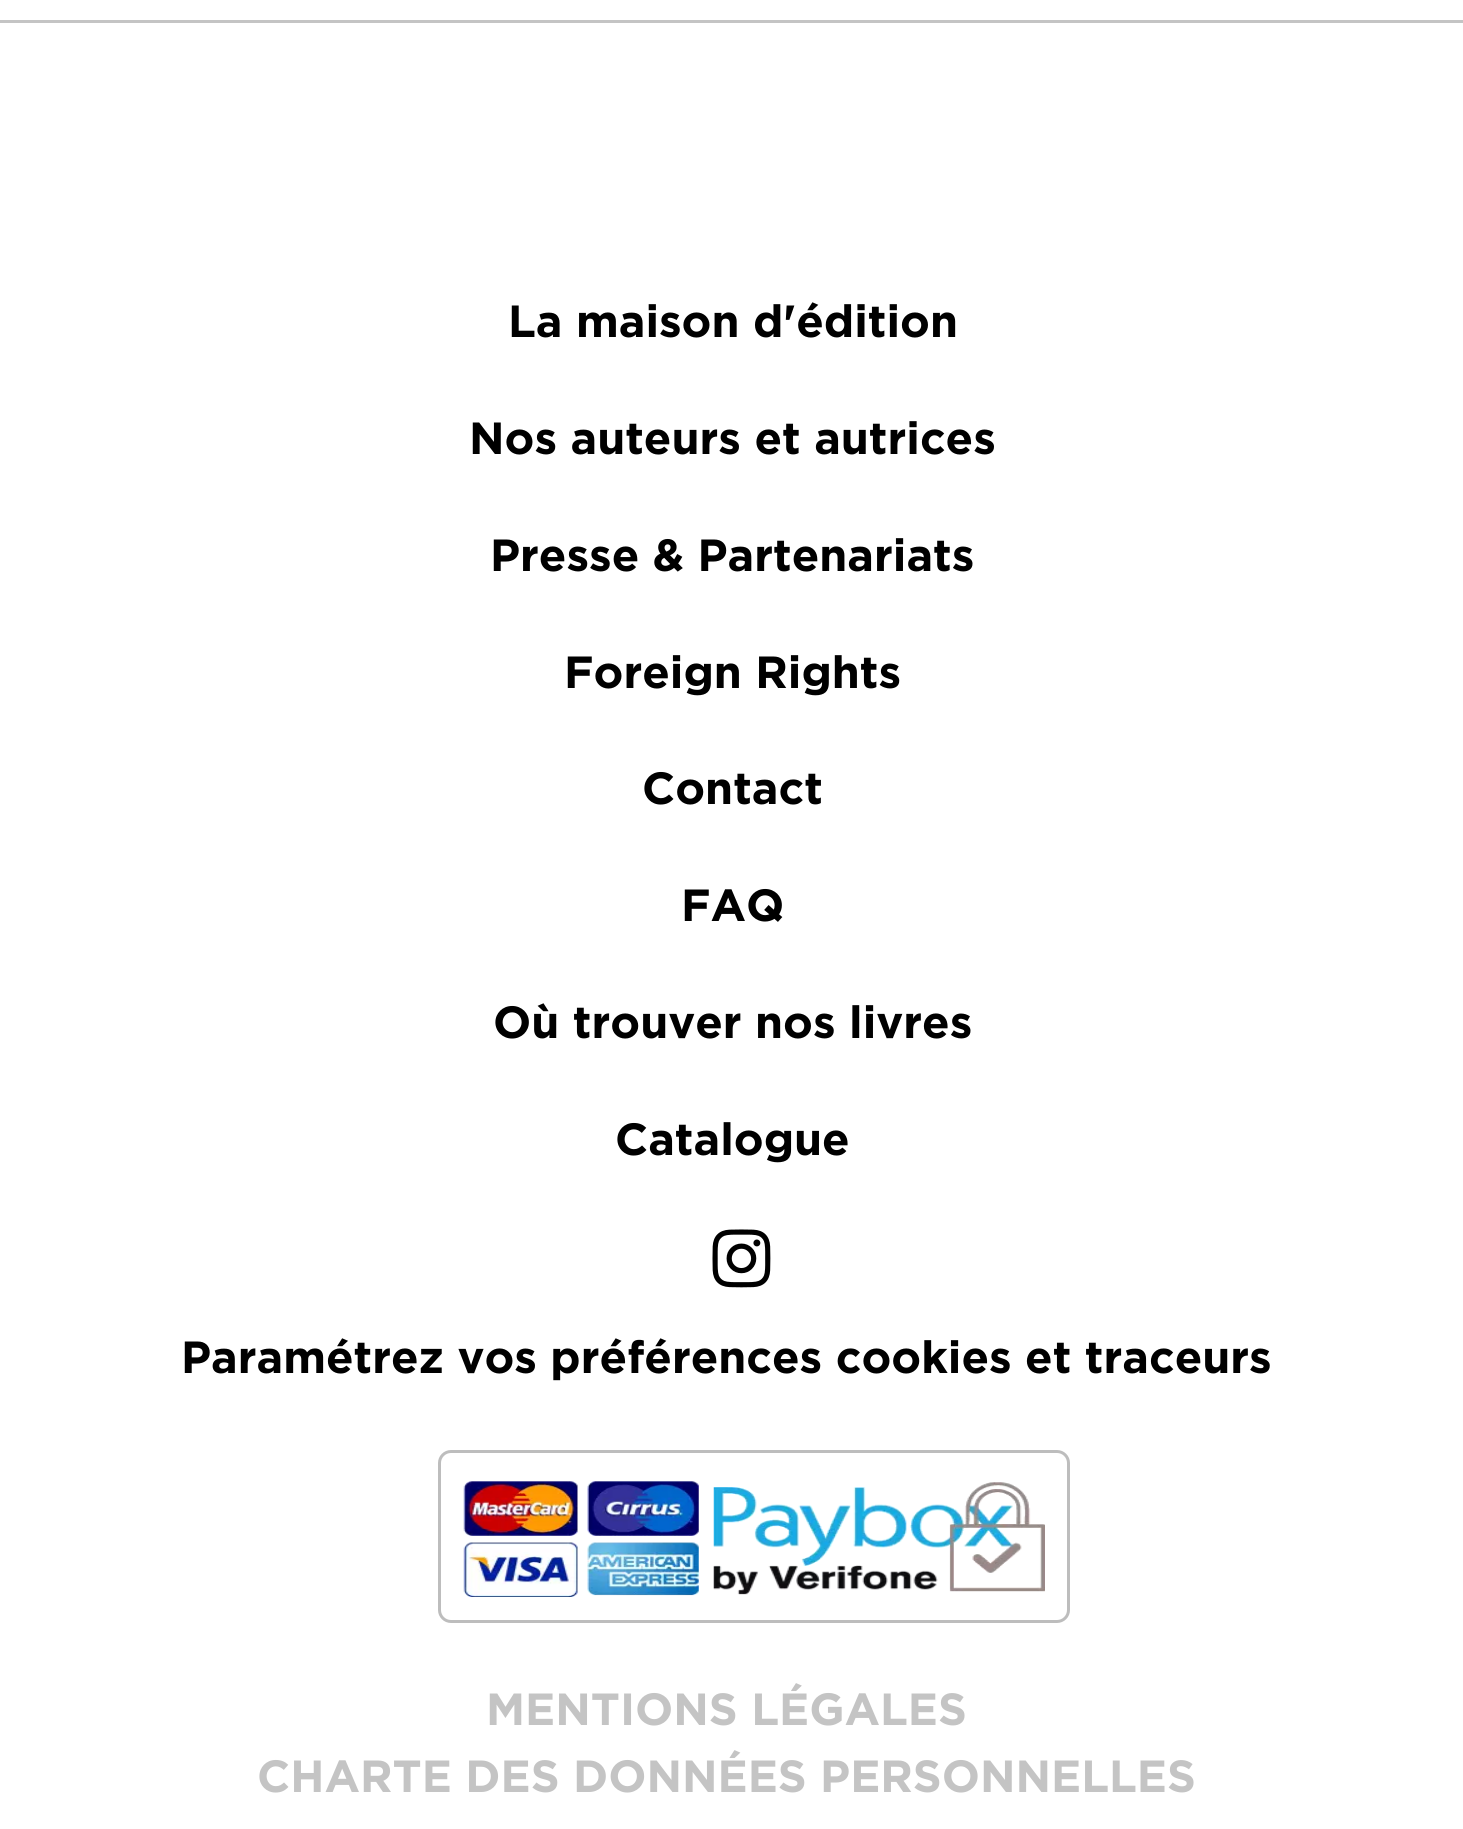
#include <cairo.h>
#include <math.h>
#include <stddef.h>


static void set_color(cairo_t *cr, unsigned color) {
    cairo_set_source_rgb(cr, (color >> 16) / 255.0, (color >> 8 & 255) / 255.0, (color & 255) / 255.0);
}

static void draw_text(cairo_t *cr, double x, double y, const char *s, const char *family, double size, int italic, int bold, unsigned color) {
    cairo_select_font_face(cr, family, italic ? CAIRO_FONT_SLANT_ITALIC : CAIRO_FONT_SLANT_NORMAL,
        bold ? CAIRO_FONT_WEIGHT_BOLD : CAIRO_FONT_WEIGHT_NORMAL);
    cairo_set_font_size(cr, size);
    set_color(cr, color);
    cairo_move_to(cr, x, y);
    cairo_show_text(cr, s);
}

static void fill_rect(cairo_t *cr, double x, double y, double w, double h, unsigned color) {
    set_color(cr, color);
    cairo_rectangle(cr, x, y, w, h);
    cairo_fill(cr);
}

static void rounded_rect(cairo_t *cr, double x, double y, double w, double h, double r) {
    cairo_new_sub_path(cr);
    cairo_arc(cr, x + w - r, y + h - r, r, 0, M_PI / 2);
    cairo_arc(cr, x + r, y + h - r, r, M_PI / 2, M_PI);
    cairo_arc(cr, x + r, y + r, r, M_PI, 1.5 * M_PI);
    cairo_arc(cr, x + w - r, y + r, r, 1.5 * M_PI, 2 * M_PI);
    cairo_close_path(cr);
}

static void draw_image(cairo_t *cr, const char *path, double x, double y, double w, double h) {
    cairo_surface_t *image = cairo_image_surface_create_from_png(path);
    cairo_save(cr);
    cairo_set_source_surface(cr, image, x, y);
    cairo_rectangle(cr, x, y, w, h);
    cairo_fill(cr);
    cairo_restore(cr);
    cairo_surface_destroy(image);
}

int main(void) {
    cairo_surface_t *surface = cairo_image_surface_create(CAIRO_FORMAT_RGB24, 1463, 1829);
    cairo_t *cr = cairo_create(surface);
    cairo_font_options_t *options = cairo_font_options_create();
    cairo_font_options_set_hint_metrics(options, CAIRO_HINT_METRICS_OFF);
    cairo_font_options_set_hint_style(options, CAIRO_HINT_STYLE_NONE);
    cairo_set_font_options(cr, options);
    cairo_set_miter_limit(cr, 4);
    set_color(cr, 0xFFFFFF);
    cairo_paint(cr);
    fill_rect(cr, 0, 20, 1463, 3, 0xC4C4C4);
    draw_text(cr, 508, 337, "La maison d'édition", "Gotham", 45, 0, 1, 0x000000);
    draw_text(cr, 469, 454, "Nos auteurs et autrices", "Gotham", 45, 0, 1, 0x000000);
    draw_text(cr, 490, 571, "Presse & Partenariats", "Gotham", 45, 0, 1, 0x000000);
    draw_text(cr, 564, 688, "Foreign Rights", "Gotham", 45, 0, 1, 0x000000);
    draw_text(cr, 642, 804, "Contact", "Gotham", 45, 0, 1, 0x000000);
    draw_text(cr, 681, 921, "FAQ", "Gotham", 45, 0, 1, 0x000000);
    draw_text(cr, 493, 1038, "Où trouver nos livres", "Gotham", 45, 0, 1, 0x000000);
    draw_text(cr, 615, 1155, "Catalogue", "Gotham", 45, 0, 1, 0x000000);
    draw_image(cr, "assets/img1.png", 712, 1229, 59, 59);
    draw_text(cr, 181, 1373, "Paramétrez vos préférences cookies et traceurs", "Gotham", 45, 0, 1, 0x000000);
    rounded_rect(cr, 439.5, 1451.5, 629, 170, 11.5);
    set_color(cr, 0xBDBDBD);
    cairo_set_line_width(cr, 3);
    cairo_stroke(cr);
    draw_image(cr, "assets/img2.png", 463, 1481, 582, 116);
    draw_text(cr, 486, 1725, "MENTIONS LÉGALES", "Gotham", 45, 0, 1, 0xC4C4C4);
    draw_text(cr, 257, 1792, "CHARTE DES DONNÉES PERSONNELLES", "Gotham", 45, 0, 1, 0xC4C4C4);
    cairo_surface_write_to_png(surface, "output.png");
    cairo_font_options_destroy(options);
    cairo_destroy(cr);
    cairo_surface_destroy(surface);
    return 0;
}
